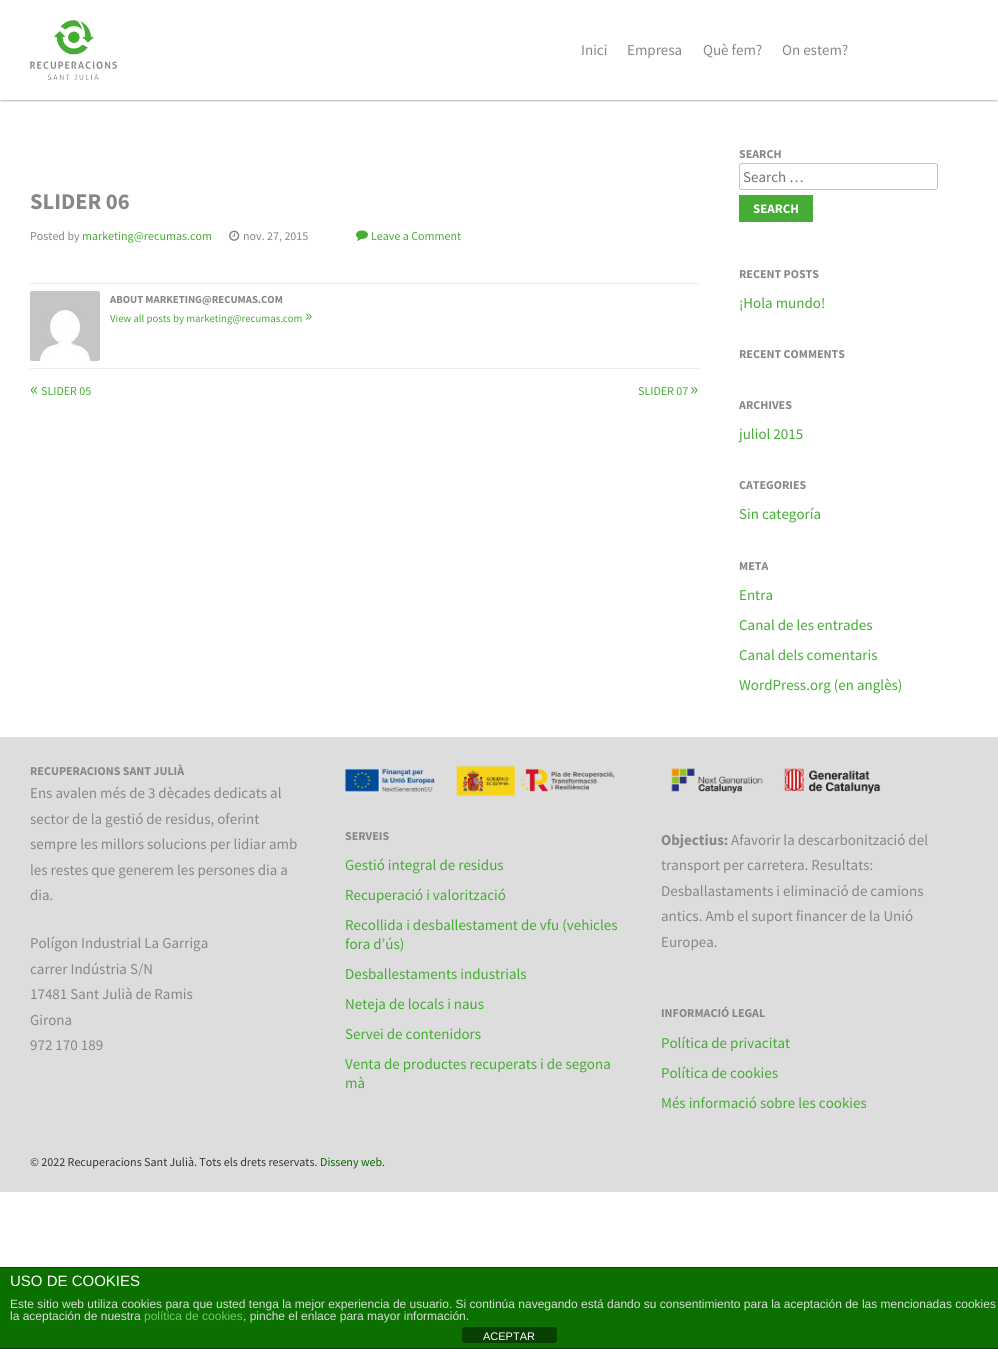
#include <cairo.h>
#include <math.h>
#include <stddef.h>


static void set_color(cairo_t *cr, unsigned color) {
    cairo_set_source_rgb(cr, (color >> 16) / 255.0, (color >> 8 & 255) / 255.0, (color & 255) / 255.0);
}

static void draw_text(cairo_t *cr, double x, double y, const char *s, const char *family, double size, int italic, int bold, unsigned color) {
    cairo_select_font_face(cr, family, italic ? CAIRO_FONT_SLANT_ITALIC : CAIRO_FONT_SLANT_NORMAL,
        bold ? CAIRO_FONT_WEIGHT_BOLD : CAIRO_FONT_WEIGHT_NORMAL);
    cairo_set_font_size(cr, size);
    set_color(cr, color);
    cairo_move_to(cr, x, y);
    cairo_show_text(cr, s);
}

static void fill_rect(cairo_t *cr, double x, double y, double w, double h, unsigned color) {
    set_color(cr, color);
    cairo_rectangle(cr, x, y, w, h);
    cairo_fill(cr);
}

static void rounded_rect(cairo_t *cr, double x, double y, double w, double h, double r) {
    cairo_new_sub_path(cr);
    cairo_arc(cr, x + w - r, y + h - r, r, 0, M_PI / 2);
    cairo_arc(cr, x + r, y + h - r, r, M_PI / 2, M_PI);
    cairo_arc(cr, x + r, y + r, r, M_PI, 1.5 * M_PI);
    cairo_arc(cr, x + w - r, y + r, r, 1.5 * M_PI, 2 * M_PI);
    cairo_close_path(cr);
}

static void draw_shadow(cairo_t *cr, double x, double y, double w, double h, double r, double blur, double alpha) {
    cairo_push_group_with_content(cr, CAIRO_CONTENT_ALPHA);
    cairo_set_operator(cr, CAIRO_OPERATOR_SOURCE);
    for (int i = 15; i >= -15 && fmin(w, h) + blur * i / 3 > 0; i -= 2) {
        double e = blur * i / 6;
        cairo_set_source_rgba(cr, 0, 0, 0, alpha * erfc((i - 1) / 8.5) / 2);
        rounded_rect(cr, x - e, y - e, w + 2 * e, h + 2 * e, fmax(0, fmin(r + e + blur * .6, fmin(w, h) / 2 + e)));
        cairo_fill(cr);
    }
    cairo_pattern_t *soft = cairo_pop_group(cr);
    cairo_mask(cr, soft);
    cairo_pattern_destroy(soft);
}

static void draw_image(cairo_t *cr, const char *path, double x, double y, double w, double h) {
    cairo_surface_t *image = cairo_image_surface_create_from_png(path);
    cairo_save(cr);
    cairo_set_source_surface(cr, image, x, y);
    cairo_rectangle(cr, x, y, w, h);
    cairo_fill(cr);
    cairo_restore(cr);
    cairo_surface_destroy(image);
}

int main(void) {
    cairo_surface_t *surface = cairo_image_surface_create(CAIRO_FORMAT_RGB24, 998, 1349);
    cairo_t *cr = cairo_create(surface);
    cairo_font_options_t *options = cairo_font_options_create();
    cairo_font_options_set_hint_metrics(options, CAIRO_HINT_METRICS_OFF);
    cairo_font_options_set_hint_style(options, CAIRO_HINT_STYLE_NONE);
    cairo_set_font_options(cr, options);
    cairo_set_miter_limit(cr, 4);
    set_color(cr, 0xFFFFFF);
    cairo_paint(cr);
    cairo_save(cr);
    cairo_rectangle(cr, 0, 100, 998, 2);
    cairo_clip(cr);
    set_color(cr, 0x000000);
    draw_shadow(cr, 1, 3, 996, 98, 0, 1, 0.3);
    cairo_restore(cr);
    draw_image(cr, "assets/img1.png", 29, 20, 88, 60);
    draw_text(cr, 581, 55, "Inici", "Source Sans Pro", 15, 0, 0, 0x878787);
    draw_text(cr, 627, 55, "Empresa", "Source Sans Pro", 15, 0, 0, 0x878787);
    draw_text(cr, 703, 55, "Què fem?", "Source Sans Pro", 15, 0, 0, 0x878787);
    draw_text(cr, 782, 55, "On estem?", "Source Sans Pro", 15, 0, 0, 0x878787);
    draw_text(cr, 30, 209, "SLIDER 06", "Source Sans Pro", 22.5, 0, 1, 0x878787);
    draw_text(cr, 30, 240, "Posted by", "Source Sans Pro", 12, 0, 0, 0x878787);
    draw_text(cr, 82, 240, "marketing@recumas.com", "Source Sans Pro", 12, 0, 0, 0x45AC34);
    draw_image(cr, "assets/img2.png", 229, 230, 11, 11);
    draw_text(cr, 243, 240, "nov. 27, 2015", "Source Sans Pro", 12, 0, 0, 0x878787);
    draw_image(cr, "assets/img3.png", 356, 230, 12, 11);
    draw_text(cr, 371, 240, "Leave a Comment", "Source Sans Pro", 12, 0, 0, 0x45AC34);
    fill_rect(cr, 30, 283, 669, 1, 0xEDEBEB);
    draw_image(cr, "assets/img4.png", 30, 291, 70, 70);
    draw_text(cr, 110, 303, "ABOUT MARKETING@RECUMAS.COM", "Source Sans Pro", 10.75, 0, 1, 0x878787);
    draw_text(cr, 110, 322, "View all posts by marketing@recumas.com", "Source Sans Pro", 10.75, 0, 0, 0x45AC34);
    draw_text(cr, 305, 321, "»", "Source Sans Pro", 17, 0, 0, 0x45AC34);
    fill_rect(cr, 30, 368, 669, 1, 0xEDEBEB);
    draw_text(cr, 30, 395, "«", "Source Sans Pro", 19, 0, 0, 0x45AC34);
    draw_text(cr, 41, 395, "SLIDER 05", "Source Sans Pro", 12, 0, 0, 0x45AC34);
    draw_text(cr, 638, 395, "SLIDER 07", "Source Sans Pro", 12, 0, 0, 0x45AC34);
    draw_text(cr, 690, 395, "»", "Source Sans Pro", 19, 0, 0, 0x45AC34);
    draw_text(cr, 739, 158, "SEARCH", "Source Sans Pro", 12, 0, 1, 0x878787);
    rounded_rect(cr, 739.5, 163.5, 198, 26, 2.5);
    set_color(cr, 0xC9C2C4);
    cairo_set_line_width(cr, 1);
    cairo_stroke(cr);
    draw_text(cr, 743, 182, "Search …", "Source Sans Pro", 15, 0, 0, 0x757575);
    fill_rect(cr, 739, 195, 74, 27, 0x45AC34);
    draw_text(cr, 753, 213, "SEARCH", "Source Sans Pro", 13, 0, 1, 0xFFFFFF);
    draw_text(cr, 739, 278, "RECENT POSTS", "Source Sans Pro", 12, 0, 1, 0x878787);
    draw_text(cr, 739, 308, "¡Hola mundo!", "Source Sans Pro", 15, 0, 0, 0x45AC34);
    draw_text(cr, 739, 358, "RECENT COMMENTS", "Source Sans Pro", 12, 0, 1, 0x878787);
    draw_text(cr, 739, 409, "ARCHIVES", "Source Sans Pro", 12, 0, 1, 0x878787);
    draw_text(cr, 739, 439, "juliol 2015", "Source Sans Pro", 15, 0, 0, 0x45AC34);
    draw_text(cr, 739, 489, "CATEGORIES", "Source Sans Pro", 12, 0, 1, 0x878787);
    draw_text(cr, 739, 519, "Sin categoría", "Source Sans Pro", 15, 0, 0, 0x45AC34);
    draw_text(cr, 739, 570, "META", "Source Sans Pro", 12, 0, 1, 0x878787);
    draw_text(cr, 739, 600, "Entra", "Source Sans Pro", 15, 0, 0, 0x45AC34);
    draw_text(cr, 739, 630, "Canal de les entrades", "Source Sans Pro", 15, 0, 0, 0x45AC34);
    draw_text(cr, 739, 660, "Canal dels comentaris", "Source Sans Pro", 15, 0, 0, 0x45AC34);
    draw_text(cr, 739, 690, "WordPress.org (en anglès)", "Source Sans Pro", 15, 0, 0, 0x45AC34);
    fill_rect(cr, 0, 737, 998, 455, 0xDDDDDD);
    draw_text(cr, 30, 775, "RECUPERACIONS SANT JULIÀ", "Source Sans Pro", 12, 0, 1, 0x878787);
    draw_text(cr, 30, 798, "Ens avalen més de 3 dècades dedicats al", "Source Sans Pro", 15, 0, 0, 0x878787);
    draw_text(cr, 30, 824, "sector de la gestió de residus, oferint", "Source Sans Pro", 15, 0, 0, 0x878787);
    draw_text(cr, 30, 849, "sempre les millors solucions per lidiar amb", "Source Sans Pro", 15, 0, 0, 0x878787);
    draw_text(cr, 30, 875, "les restes que generem les persones dia a", "Source Sans Pro", 15, 0, 0, 0x878787);
    draw_text(cr, 30, 900, "dia.", "Source Sans Pro", 15, 0, 0, 0x878787);
    draw_text(cr, 30, 948, "Polígon Industrial La Garriga", "Source Sans Pro", 15, 0, 0, 0x878787);
    draw_text(cr, 30, 974, "carrer Indústria S/N", "Source Sans Pro", 15, 0, 0, 0x878787);
    draw_text(cr, 30, 999, "17481 Sant Julià de Ramis", "Source Sans Pro", 15, 0, 0, 0x878787);
    draw_text(cr, 30, 1025, "Girona", "Source Sans Pro", 15, 0, 0, 0x878787);
    draw_text(cr, 30, 1050, "972 170 189", "Source Sans Pro", 15, 0, 0, 0x878787);
    draw_image(cr, "assets/img5.png", 345, 765, 270, 32);
    draw_image(cr, "assets/img6.png", 671, 768, 210, 26);
    draw_text(cr, 345, 840, "SERVEIS", "Source Sans Pro", 12, 0, 1, 0x878787);
    draw_text(cr, 345, 870, "Gestió integral de residus", "Source Sans Pro", 15, 0, 0, 0x45AC34);
    draw_text(cr, 345, 900, "Recuperació i valorització", "Source Sans Pro", 15, 0, 0, 0x45AC34);
    draw_text(cr, 345, 930, "Recollida i desballestament de vfu (vehicles", "Source Sans Pro", 15, 0, 0, 0x45AC34);
    draw_text(cr, 345, 949, "fora d’ús)", "Source Sans Pro", 15, 0, 0, 0x45AC34);
    draw_text(cr, 345, 979, "Desballestaments industrials", "Source Sans Pro", 15, 0, 0, 0x45AC34);
    draw_text(cr, 345, 1009, "Neteja de locals i naus", "Source Sans Pro", 15, 0, 0, 0x45AC34);
    draw_text(cr, 345, 1039, "Servei de contenidors", "Source Sans Pro", 15, 0, 0, 0x45AC34);
    draw_text(cr, 345, 1069, "Venta de productes recuperats i de segona", "Source Sans Pro", 15, 0, 0, 0x45AC34);
    draw_text(cr, 345, 1088, "mà", "Source Sans Pro", 15, 0, 0, 0x45AC34);
    draw_text(cr, 661, 845, "Objectius:", "Source Sans Pro", 15, 0, 1, 0x878787);
    draw_text(cr, 731, 845, "Afavorir la descarbonització del", "Source Sans Pro", 15, 0, 0, 0x878787);
    draw_text(cr, 661, 870, "transport per carretera. Resultats:", "Source Sans Pro", 15, 0, 0, 0x878787);
    draw_text(cr, 661, 896, "Desballastaments i eliminació de camions", "Source Sans Pro", 15, 0, 0, 0x878787);
    draw_text(cr, 661, 921, "antics. Amb el suport financer de la Unió", "Source Sans Pro", 15, 0, 0, 0x878787);
    draw_text(cr, 661, 947, "Europea.", "Source Sans Pro", 15, 0, 0, 0x878787);
    draw_text(cr, 661, 1017, "INFORMACIÓ LEGAL", "Source Sans Pro", 12, 0, 1, 0x878787);
    draw_text(cr, 661, 1048, "Política de privacitat", "Source Sans Pro", 15, 0, 0, 0x45AC34);
    draw_text(cr, 661, 1078, "Política de cookies", "Source Sans Pro", 15, 0, 0, 0x45AC34);
    draw_text(cr, 661, 1108, "Més informació sobre les cookies", "Source Sans Pro", 15, 0, 0, 0x45AC34);
    draw_text(cr, 30, 1166, "© 2022 Recuperacions Sant Julià. Tots els drets reservats.", "Source Sans Pro", 12, 0, 0, 0x333333);
    draw_text(cr, 320, 1166, "Disseny web", "Source Sans Pro", 12, 0, 0, 0x006600);
    draw_text(cr, 382, 1166, ".", "Source Sans Pro", 12, 0, 0, 0x333333);
    fill_rect(cr, 0, 1268, 998, 80, 0x0B7000);
    fill_rect(cr, 0, 1267, 998, 1, 0x064000);
    fill_rect(cr, 0, 1348, 998, 1, 0x064000);
    draw_text(cr, 10, 1286, "USO DE COOKIES", "Liberation Sans", 15, 0, 0, 0xFFFFFF);
    draw_text(cr, 10, 1308, "Este sitio web utiliza cookies para que usted tenga la mejor experiencia de usuario. Si continúa navegando está dando su consentimiento para la aceptación de las mencionadas cookies", "Liberation Sans", 12, 0, 0, 0xDDDDDD);
    draw_text(cr, 10, 1320, "la aceptación de nuestra", "Liberation Sans", 12, 0, 0, 0xDDDDDD);
    draw_text(cr, 144, 1320, "política de cookies", "Liberation Sans", 12, 0, 0, 0x75C76C);
    draw_text(cr, 243, 1320, ", pinche el enlace para mayor información.", "Liberation Sans", 12, 0, 0, 0xDDDDDD);
    set_color(cr, 0x074000);
    rounded_rect(cr, 462, 1327, 95, 16, 3);
    cairo_fill(cr);
    draw_text(cr, 483, 1340, "ACEPTAR", "Liberation Sans", 11, 0, 0, 0xFFFFFF);
    cairo_surface_write_to_png(surface, "output.png");
    cairo_font_options_destroy(options);
    cairo_destroy(cr);
    cairo_surface_destroy(surface);
    return 0;
}
